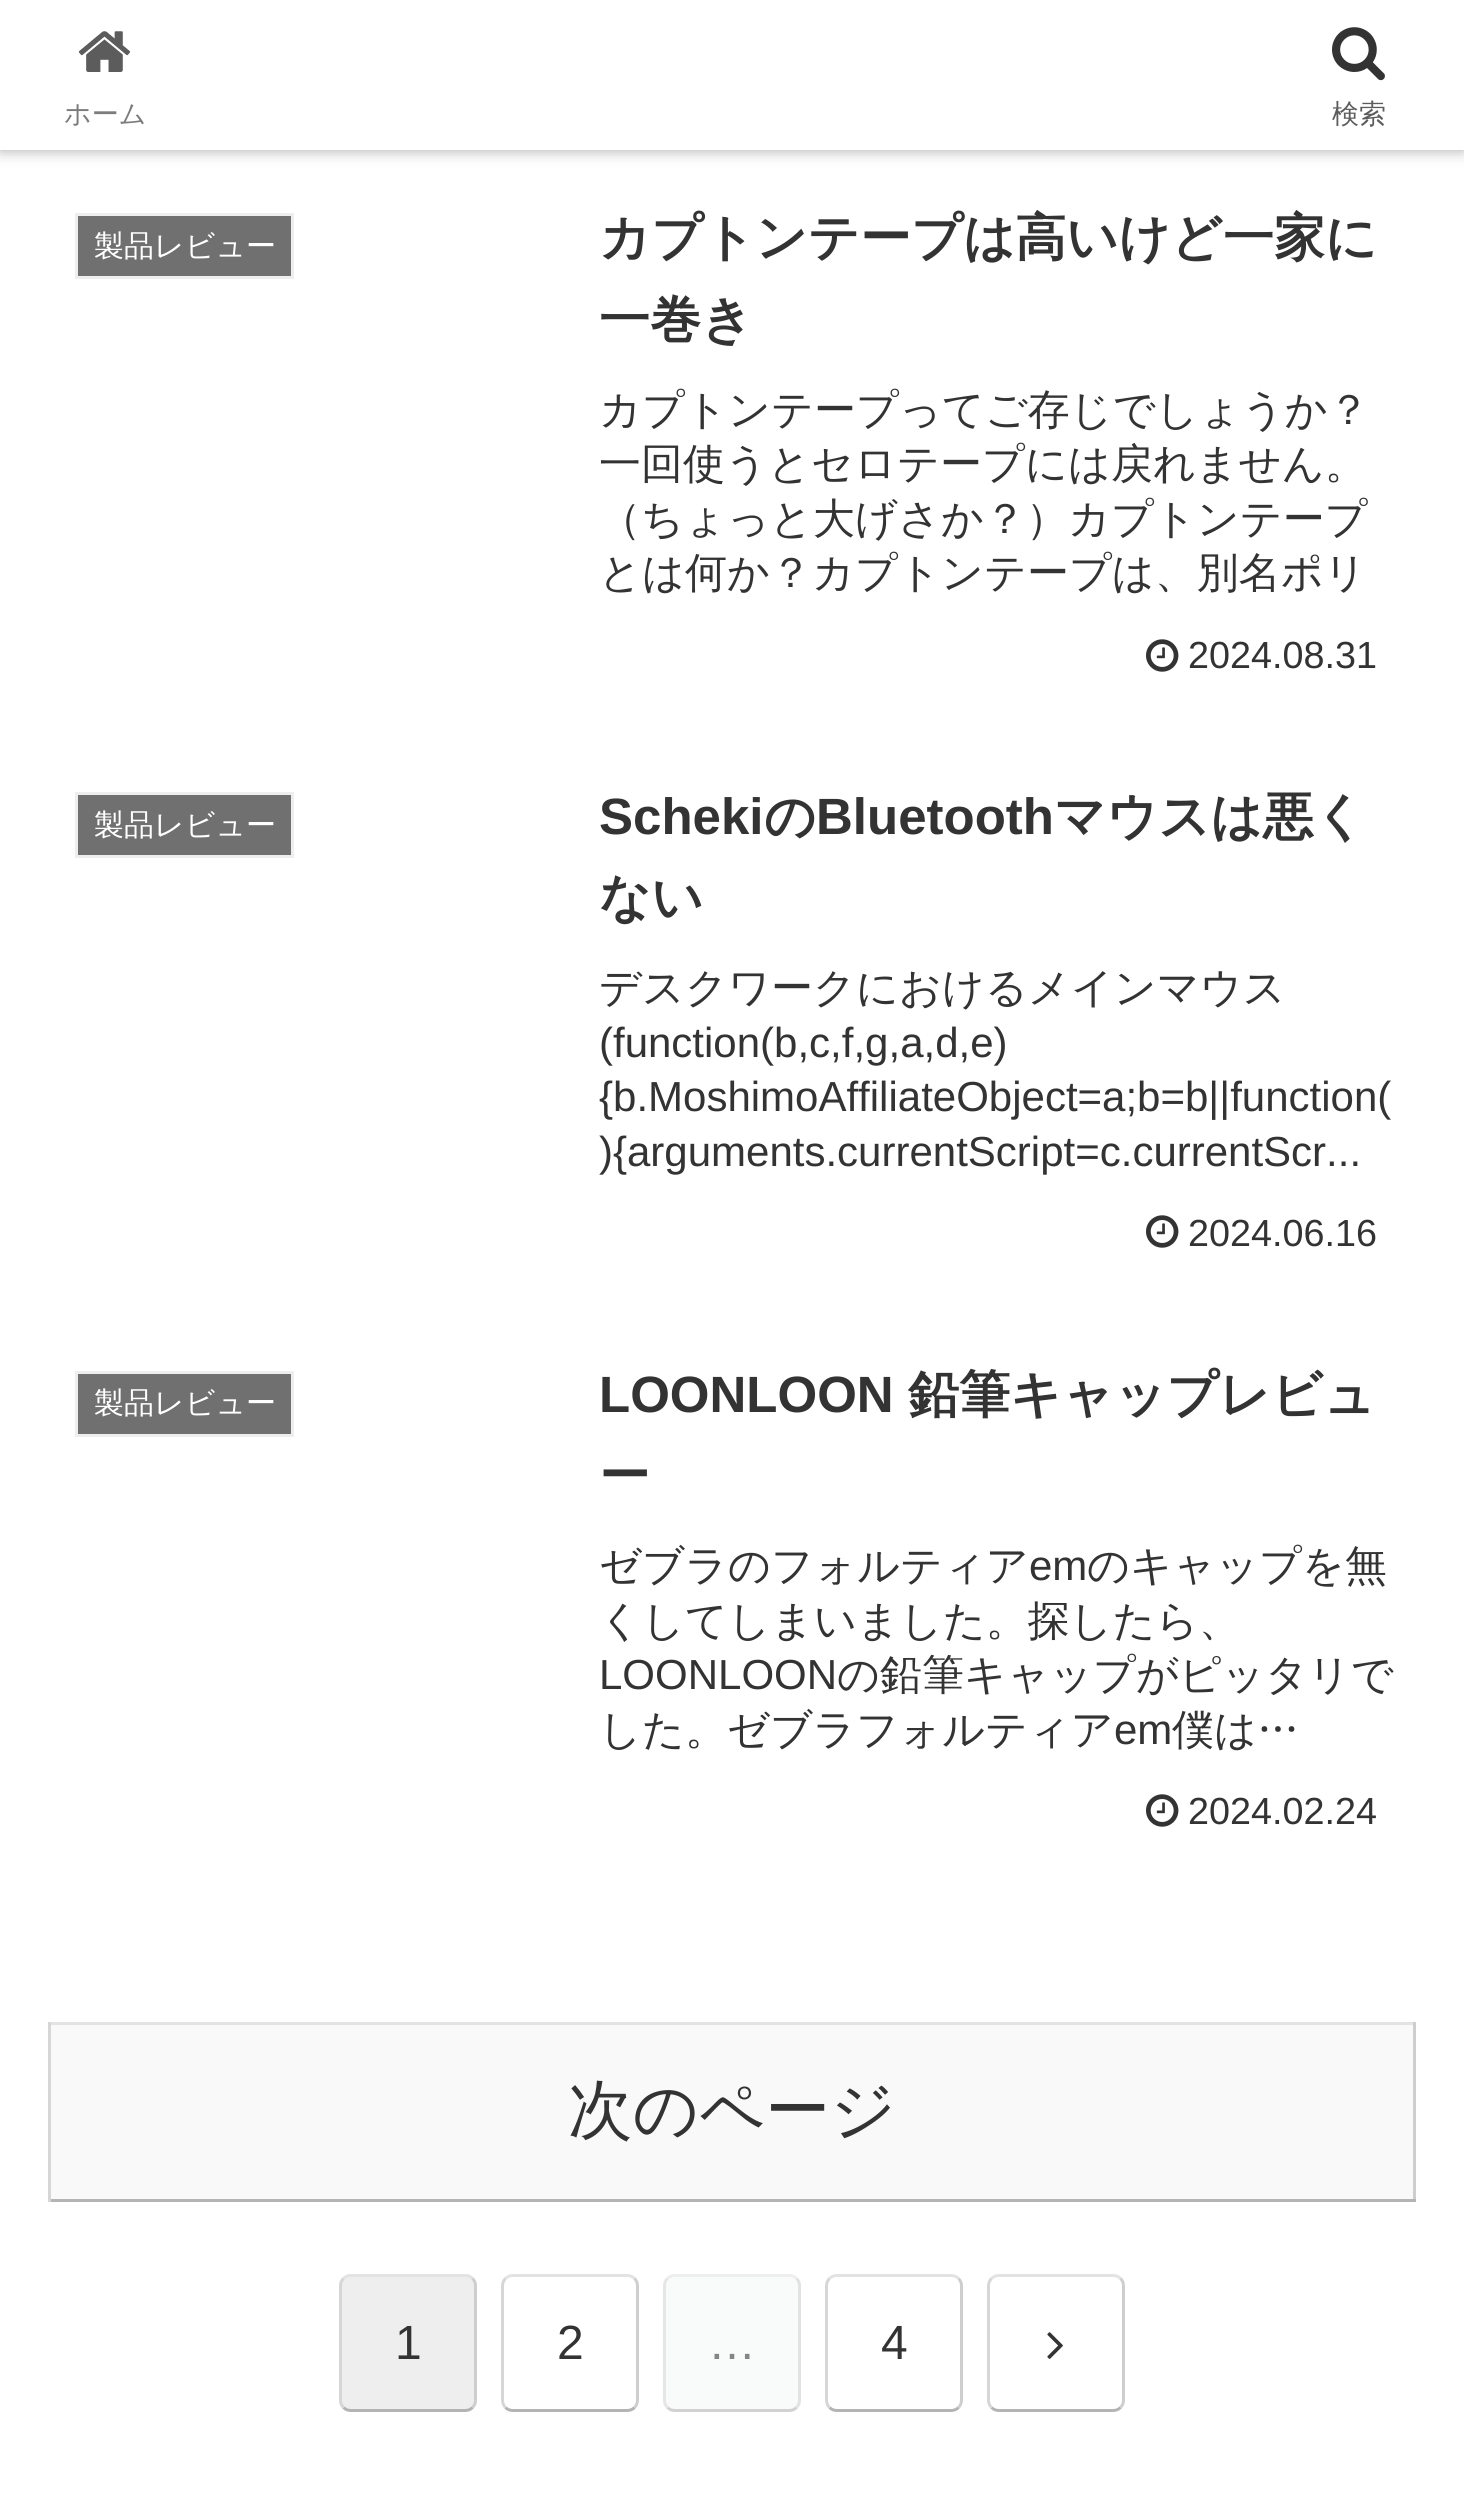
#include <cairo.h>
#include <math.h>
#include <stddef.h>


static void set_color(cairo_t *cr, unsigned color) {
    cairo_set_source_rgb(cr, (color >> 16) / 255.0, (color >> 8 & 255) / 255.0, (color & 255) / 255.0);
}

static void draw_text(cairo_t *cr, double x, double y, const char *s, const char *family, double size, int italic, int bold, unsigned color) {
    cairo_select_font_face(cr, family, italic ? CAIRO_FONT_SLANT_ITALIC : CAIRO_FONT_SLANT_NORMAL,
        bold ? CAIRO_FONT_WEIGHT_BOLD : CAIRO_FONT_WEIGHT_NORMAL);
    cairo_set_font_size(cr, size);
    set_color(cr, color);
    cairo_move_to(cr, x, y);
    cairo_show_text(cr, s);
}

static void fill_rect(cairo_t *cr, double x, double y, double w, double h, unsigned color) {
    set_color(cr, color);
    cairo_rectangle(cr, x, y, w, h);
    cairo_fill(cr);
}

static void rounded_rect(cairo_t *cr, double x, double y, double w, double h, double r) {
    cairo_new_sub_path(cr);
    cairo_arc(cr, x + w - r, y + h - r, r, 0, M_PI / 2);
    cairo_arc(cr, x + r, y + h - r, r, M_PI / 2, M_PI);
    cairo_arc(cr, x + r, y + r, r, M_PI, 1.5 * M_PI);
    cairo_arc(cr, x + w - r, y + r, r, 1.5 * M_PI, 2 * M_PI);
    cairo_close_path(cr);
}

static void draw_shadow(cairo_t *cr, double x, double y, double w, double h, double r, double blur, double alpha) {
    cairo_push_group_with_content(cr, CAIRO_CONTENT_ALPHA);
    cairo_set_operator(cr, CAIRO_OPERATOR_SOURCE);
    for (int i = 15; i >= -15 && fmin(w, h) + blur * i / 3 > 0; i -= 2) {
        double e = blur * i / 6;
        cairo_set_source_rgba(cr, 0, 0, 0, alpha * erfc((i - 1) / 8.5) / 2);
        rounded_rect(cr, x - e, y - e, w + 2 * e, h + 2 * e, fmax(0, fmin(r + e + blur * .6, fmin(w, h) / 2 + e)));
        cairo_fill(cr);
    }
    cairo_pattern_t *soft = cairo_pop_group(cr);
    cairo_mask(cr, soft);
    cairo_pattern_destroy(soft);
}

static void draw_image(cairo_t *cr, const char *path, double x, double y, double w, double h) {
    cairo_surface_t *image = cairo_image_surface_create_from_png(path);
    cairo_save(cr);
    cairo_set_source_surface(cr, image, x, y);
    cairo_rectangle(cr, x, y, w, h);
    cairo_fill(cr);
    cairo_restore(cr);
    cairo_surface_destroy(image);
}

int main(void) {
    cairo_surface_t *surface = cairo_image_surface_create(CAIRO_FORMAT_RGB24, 1464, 2507);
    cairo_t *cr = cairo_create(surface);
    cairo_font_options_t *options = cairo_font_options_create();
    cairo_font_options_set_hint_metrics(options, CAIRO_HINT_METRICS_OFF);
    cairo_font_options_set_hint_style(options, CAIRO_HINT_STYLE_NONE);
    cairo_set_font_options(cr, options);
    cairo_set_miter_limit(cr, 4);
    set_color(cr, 0xFFFFFF);
    cairo_paint(cr);
    set_color(cr, 0xA9A9A9);
    draw_shadow(cr, 0, 0, 1464, 150, 0, 7.5, 1);
    fill_rect(cr, 0, 0, 1464, 150, 0xFFFFFF);
    draw_image(cr, "assets/img1.png", 78, 31, 53, 41);
    draw_text(cr, 64, 123, "ホーム", "WenQuanYi Zen Hei Medium", 27, 0, 0, 0x7C7C7C);
    draw_image(cr, "assets/img2.png", 1332, 27, 53, 54);
    draw_text(cr, 1332, 123, "検索", "WenQuanYi Zen Hei Medium", 27, 0, 0, 0x5C5C5C);
    set_color(cr, 0x707070);
    cairo_rectangle(cr, 76.5, 214.5, 216, 63);
    cairo_fill_preserve(cr);
    set_color(cr, 0xEEEEEE);
    cairo_set_line_width(cr, 3);
    cairo_stroke(cr);
    draw_text(cr, 94, 256, "製品レビュー", "WenQuanYi Zen Hei Medium", 30, 0, 0, 0xFFFFFF);
    draw_text(cr, 599, 255, "カプトンテープは高いけど一家に", "WenQuanYi Zen Hei", 51, 0, 1, 0x333333);
    draw_text(cr, 599, 337, "一巻き", "WenQuanYi Zen Hei", 51, 0, 1, 0x333333);
    draw_text(cr, 599, 424, "カプトンテープってご存じでしょうか？", "WenQuanYi Zen Hei Medium", 42, 0, 0, 0x333333);
    draw_text(cr, 599, 478, "一回使うとセロテープには戻れません。", "WenQuanYi Zen Hei Medium", 42, 0, 0, 0x333333);
    draw_text(cr, 599, 533, "（ちょっと大げさか？）カプトンテープ", "WenQuanYi Zen Hei Medium", 42, 0, 0, 0x333333);
    draw_text(cr, 599, 587, "とは何か？カプトンテープは、別名ポリ", "WenQuanYi Zen Hei Medium", 42, 0, 0, 0x333333);
    draw_image(cr, "assets/img3.png", 1146, 639, 33, 33);
    draw_text(cr, 1188, 668, "2024.08.31", "Liberation Sans", 37.75, 0, 0, 0x333333);
    set_color(cr, 0x707070);
    cairo_rectangle(cr, 76.5, 793.5, 216, 63);
    cairo_fill_preserve(cr);
    set_color(cr, 0xEEEEEE);
    cairo_stroke(cr);
    draw_text(cr, 94, 835, "製品レビュー", "WenQuanYi Zen Hei Medium", 30, 0, 0, 0xFFFFFF);
    draw_text(cr, 599, 834, "Scheki", "Liberation Sans", 51, 0, 1, 0x333333);
    draw_text(cr, 764, 834, "の", "WenQuanYi Zen Hei", 51, 0, 1, 0x333333);
    draw_text(cr, 816, 834, "Bluetooth", "Liberation Sans", 51, 0, 1, 0x333333);
    draw_text(cr, 1054, 834, "マウスは悪く", "WenQuanYi Zen Hei", 51, 0, 1, 0x333333);
    draw_text(cr, 599, 915, "ない", "WenQuanYi Zen Hei", 51, 0, 1, 0x333333);
    draw_text(cr, 599, 1002, "デスクワークにおけるメインマウス", "WenQuanYi Zen Hei Medium", 42, 0, 0, 0x333333);
    draw_text(cr, 599, 1057, "(function(b,c,f,g,a,d,e)", "Liberation Sans", 42, 0, 0, 0x333333);
    draw_text(cr, 599, 1111, "{b.MoshimoAffiliateObject=a;b=b||function(", "Liberation Sans", 42, 0, 0, 0x333333);
    draw_text(cr, 599, 1166, "){arguments.currentScript=c.currentScr...", "Liberation Sans", 42, 0, 0, 0x333333);
    draw_image(cr, "assets/img3.png", 1146, 1215, 33, 33);
    draw_text(cr, 1188, 1246, "2024.06.16", "Liberation Sans", 37.75, 0, 0, 0x333333);
    set_color(cr, 0x707070);
    cairo_rectangle(cr, 76.5, 1372.5, 216, 63);
    cairo_fill_preserve(cr);
    set_color(cr, 0xEEEEEE);
    cairo_stroke(cr);
    draw_text(cr, 94, 1413, "製品レビュー", "WenQuanYi Zen Hei Medium", 30, 0, 0, 0xFFFFFF);
    draw_text(cr, 599, 1412, "LOONLOON", "Liberation Sans", 51, 0, 1, 0x333333);
    draw_text(cr, 908, 1412, "鉛筆キャップレビュ", "WenQuanYi Zen Hei", 51, 0, 1, 0x333333);
    draw_text(cr, 599, 1493, "ー", "WenQuanYi Zen Hei", 51, 0, 1, 0x333333);
    draw_text(cr, 599, 1580, "ゼブラのフォルティア", "WenQuanYi Zen Hei Medium", 42, 0, 0, 0x333333);
    draw_text(cr, 1029, 1580, "em", "Liberation Sans", 42, 0, 0, 0x333333);
    draw_text(cr, 1087, 1580, "のキャップを無", "WenQuanYi Zen Hei Medium", 42, 0, 0, 0x333333);
    draw_text(cr, 599, 1635, "くしてしまいました。探したら、", "WenQuanYi Zen Hei Medium", 42, 0, 0, 0x333333);
    draw_text(cr, 599, 1689, "LOONLOON", "Liberation Sans", 42, 0, 0, 0x333333);
    draw_text(cr, 837, 1689, "の鉛筆キャップがピッタリで", "WenQuanYi Zen Hei Medium", 42, 0, 0, 0x333333);
    draw_text(cr, 599, 1744, "した。ゼブラフォルティア", "WenQuanYi Zen Hei Medium", 42, 0, 0, 0x333333);
    draw_text(cr, 1114, 1744, "em", "Liberation Sans", 42, 0, 0, 0x333333);
    draw_text(cr, 1172, 1744, "僕は…", "WenQuanYi Zen Hei Medium", 42, 0, 0, 0x333333);
    draw_image(cr, "assets/img3.png", 1146, 1794, 33, 33);
    draw_text(cr, 1188, 1824, "2024.02.24", "Liberation Sans", 37.75, 0, 0, 0x333333);
    fill_rect(cr, 51, 2025, 1362, 174, 0xF9F9F9);
    fill_rect(cr, 48, 2022, 1368, 3, 0xE3E3E3);
    fill_rect(cr, 1413, 2022, 3, 180, 0xCECECE);
    fill_rect(cr, 48, 2199, 1368, 3, 0xB4B4B4);
    fill_rect(cr, 48, 2022, 3, 180, 0xD6D6D6);
    draw_text(cr, 568, 2132, "次のページ", "WenQuanYi Zen Hei Medium", 64.75, 0, 0, 0x333333);
    set_color(cr, 0xEEEEEE);
    rounded_rect(cr, 339, 2274, 138, 138, 12);
    cairo_fill(cr);
    cairo_new_path(cr);
    cairo_move_to(cr, 343.5, 2278.5);
    cairo_curve_to(cr, 345.5, 2276.5, 348, 2275.5, 351, 2275.5);
    cairo_line_to(cr, 465, 2275.5);
    cairo_curve_to(cr, 468, 2275.5, 470.5, 2276.5, 472.5, 2278.5);
    set_color(cr, 0xE3E3E3);
    cairo_stroke(cr);
    cairo_new_path(cr);
    cairo_move_to(cr, 472.5, 2278.5);
    cairo_curve_to(cr, 474.5, 2280.5, 475.5, 2283, 475.5, 2286);
    cairo_line_to(cr, 475.5, 2400);
    cairo_curve_to(cr, 475.5, 2403, 474.5, 2405.5, 472.5, 2407.5);
    set_color(cr, 0xCECECE);
    cairo_stroke(cr);
    cairo_new_path(cr);
    cairo_move_to(cr, 472.5, 2407.5);
    cairo_curve_to(cr, 470.5, 2409.5, 468, 2410.5, 465, 2410.5);
    cairo_line_to(cr, 351, 2410.5);
    cairo_curve_to(cr, 348, 2410.5, 345.5, 2409.5, 343.5, 2407.5);
    set_color(cr, 0xB4B4B4);
    cairo_stroke(cr);
    cairo_new_path(cr);
    cairo_move_to(cr, 343.5, 2407.5);
    cairo_curve_to(cr, 341.5, 2405.5, 340.5, 2403, 340.5, 2400);
    cairo_line_to(cr, 340.5, 2286);
    cairo_curve_to(cr, 340.5, 2283, 341.5, 2280.5, 343.5, 2278.5);
    set_color(cr, 0xD6D6D6);
    cairo_stroke(cr);
    draw_text(cr, 395, 2359, "1", "Liberation Sans", 48, 0, 0, 0x333333);
    cairo_new_path(cr);
    cairo_move_to(cr, 505.5, 2278.5);
    cairo_curve_to(cr, 507.5, 2276.5, 510, 2275.5, 513, 2275.5);
    cairo_line_to(cr, 627, 2275.5);
    cairo_curve_to(cr, 630, 2275.5, 632.5, 2276.5, 634.5, 2278.5);
    set_color(cr, 0xE3E3E3);
    cairo_stroke(cr);
    cairo_new_path(cr);
    cairo_move_to(cr, 634.5, 2278.5);
    cairo_curve_to(cr, 636.5, 2280.5, 637.5, 2283, 637.5, 2286);
    cairo_line_to(cr, 637.5, 2400);
    cairo_curve_to(cr, 637.5, 2403, 636.5, 2405.5, 634.5, 2407.5);
    set_color(cr, 0xCECECE);
    cairo_stroke(cr);
    cairo_new_path(cr);
    cairo_move_to(cr, 634.5, 2407.5);
    cairo_curve_to(cr, 632.5, 2409.5, 630, 2410.5, 627, 2410.5);
    cairo_line_to(cr, 513, 2410.5);
    cairo_curve_to(cr, 510, 2410.5, 507.5, 2409.5, 505.5, 2407.5);
    set_color(cr, 0xB4B4B4);
    cairo_stroke(cr);
    cairo_new_path(cr);
    cairo_move_to(cr, 505.5, 2407.5);
    cairo_curve_to(cr, 503.5, 2405.5, 502.5, 2403, 502.5, 2400);
    cairo_line_to(cr, 502.5, 2286);
    cairo_curve_to(cr, 502.5, 2283, 503.5, 2280.5, 505.5, 2278.5);
    set_color(cr, 0xD6D6D6);
    cairo_stroke(cr);
    draw_text(cr, 557, 2359, "2", "Liberation Sans", 48, 0, 0, 0x333333);
    set_color(cr, 0xF9FAFA);
    rounded_rect(cr, 663, 2274, 138, 138, 12);
    cairo_fill(cr);
    cairo_new_path(cr);
    cairo_move_to(cr, 667.5, 2278.5);
    cairo_curve_to(cr, 669.5, 2276.5, 672, 2275.5, 675, 2275.5);
    cairo_line_to(cr, 789, 2275.5);
    cairo_curve_to(cr, 792, 2275.5, 794.5, 2276.5, 796.5, 2278.5);
    set_color(cr, 0xEEEEEE);
    cairo_stroke(cr);
    cairo_new_path(cr);
    cairo_move_to(cr, 796.5, 2278.5);
    cairo_curve_to(cr, 798.5, 2280.5, 799.5, 2283, 799.5, 2286);
    cairo_line_to(cr, 799.5, 2400);
    cairo_curve_to(cr, 799.5, 2403, 798.5, 2405.5, 796.5, 2407.5);
    set_color(cr, 0xE2E2E2);
    cairo_stroke(cr);
    cairo_new_path(cr);
    cairo_move_to(cr, 796.5, 2407.5);
    cairo_curve_to(cr, 794.5, 2409.5, 792, 2410.5, 789, 2410.5);
    cairo_line_to(cr, 675, 2410.5);
    cairo_curve_to(cr, 672, 2410.5, 669.5, 2409.5, 667.5, 2407.5);
    set_color(cr, 0xD2D2D2);
    cairo_stroke(cr);
    cairo_new_path(cr);
    cairo_move_to(cr, 667.5, 2407.5);
    cairo_curve_to(cr, 665.5, 2405.5, 664.5, 2403, 664.5, 2400);
    cairo_line_to(cr, 664.5, 2286);
    cairo_curve_to(cr, 664.5, 2283, 665.5, 2280.5, 667.5, 2278.5);
    set_color(cr, 0xE6E6E6);
    cairo_stroke(cr);
    draw_text(cr, 708, 2359, "…", "Liberation Sans", 48, 0, 0, 0x858585);
    cairo_new_path(cr);
    cairo_move_to(cr, 829.5, 2278.5);
    cairo_curve_to(cr, 831.5, 2276.5, 834, 2275.5, 837, 2275.5);
    cairo_line_to(cr, 951, 2275.5);
    cairo_curve_to(cr, 954, 2275.5, 956.5, 2276.5, 958.5, 2278.5);
    set_color(cr, 0xE3E3E3);
    cairo_stroke(cr);
    cairo_new_path(cr);
    cairo_move_to(cr, 958.5, 2278.5);
    cairo_curve_to(cr, 960.5, 2280.5, 961.5, 2283, 961.5, 2286);
    cairo_line_to(cr, 961.5, 2400);
    cairo_curve_to(cr, 961.5, 2403, 960.5, 2405.5, 958.5, 2407.5);
    set_color(cr, 0xCECECE);
    cairo_stroke(cr);
    cairo_new_path(cr);
    cairo_move_to(cr, 958.5, 2407.5);
    cairo_curve_to(cr, 956.5, 2409.5, 954, 2410.5, 951, 2410.5);
    cairo_line_to(cr, 837, 2410.5);
    cairo_curve_to(cr, 834, 2410.5, 831.5, 2409.5, 829.5, 2407.5);
    set_color(cr, 0xB4B4B4);
    cairo_stroke(cr);
    cairo_new_path(cr);
    cairo_move_to(cr, 829.5, 2407.5);
    cairo_curve_to(cr, 827.5, 2405.5, 826.5, 2403, 826.5, 2400);
    cairo_line_to(cr, 826.5, 2286);
    cairo_curve_to(cr, 826.5, 2283, 827.5, 2280.5, 829.5, 2278.5);
    set_color(cr, 0xD6D6D6);
    cairo_stroke(cr);
    draw_text(cr, 881, 2359, "4", "Liberation Sans", 48, 0, 0, 0x333333);
    cairo_new_path(cr);
    cairo_move_to(cr, 991.5, 2278.5);
    cairo_curve_to(cr, 993.5, 2276.5, 996, 2275.5, 999, 2275.5);
    cairo_line_to(cr, 1113, 2275.5);
    cairo_curve_to(cr, 1116, 2275.5, 1118.5, 2276.5, 1120.5, 2278.5);
    set_color(cr, 0xE3E3E3);
    cairo_stroke(cr);
    cairo_new_path(cr);
    cairo_move_to(cr, 1120.5, 2278.5);
    cairo_curve_to(cr, 1122.5, 2280.5, 1123.5, 2283, 1123.5, 2286);
    cairo_line_to(cr, 1123.5, 2400);
    cairo_curve_to(cr, 1123.5, 2403, 1122.5, 2405.5, 1120.5, 2407.5);
    set_color(cr, 0xCECECE);
    cairo_stroke(cr);
    cairo_new_path(cr);
    cairo_move_to(cr, 1120.5, 2407.5);
    cairo_curve_to(cr, 1118.5, 2409.5, 1116, 2410.5, 1113, 2410.5);
    cairo_line_to(cr, 999, 2410.5);
    cairo_curve_to(cr, 996, 2410.5, 993.5, 2409.5, 991.5, 2407.5);
    set_color(cr, 0xB4B4B4);
    cairo_stroke(cr);
    cairo_new_path(cr);
    cairo_move_to(cr, 991.5, 2407.5);
    cairo_curve_to(cr, 989.5, 2405.5, 988.5, 2403, 988.5, 2400);
    cairo_line_to(cr, 988.5, 2286);
    cairo_curve_to(cr, 988.5, 2283, 989.5, 2280.5, 991.5, 2278.5);
    set_color(cr, 0xD6D6D6);
    cairo_stroke(cr);
    draw_image(cr, "assets/img4.png", 1047, 2332, 16, 27);
    cairo_surface_write_to_png(surface, "output.png");
    cairo_font_options_destroy(options);
    cairo_destroy(cr);
    cairo_surface_destroy(surface);
    return 0;
}
